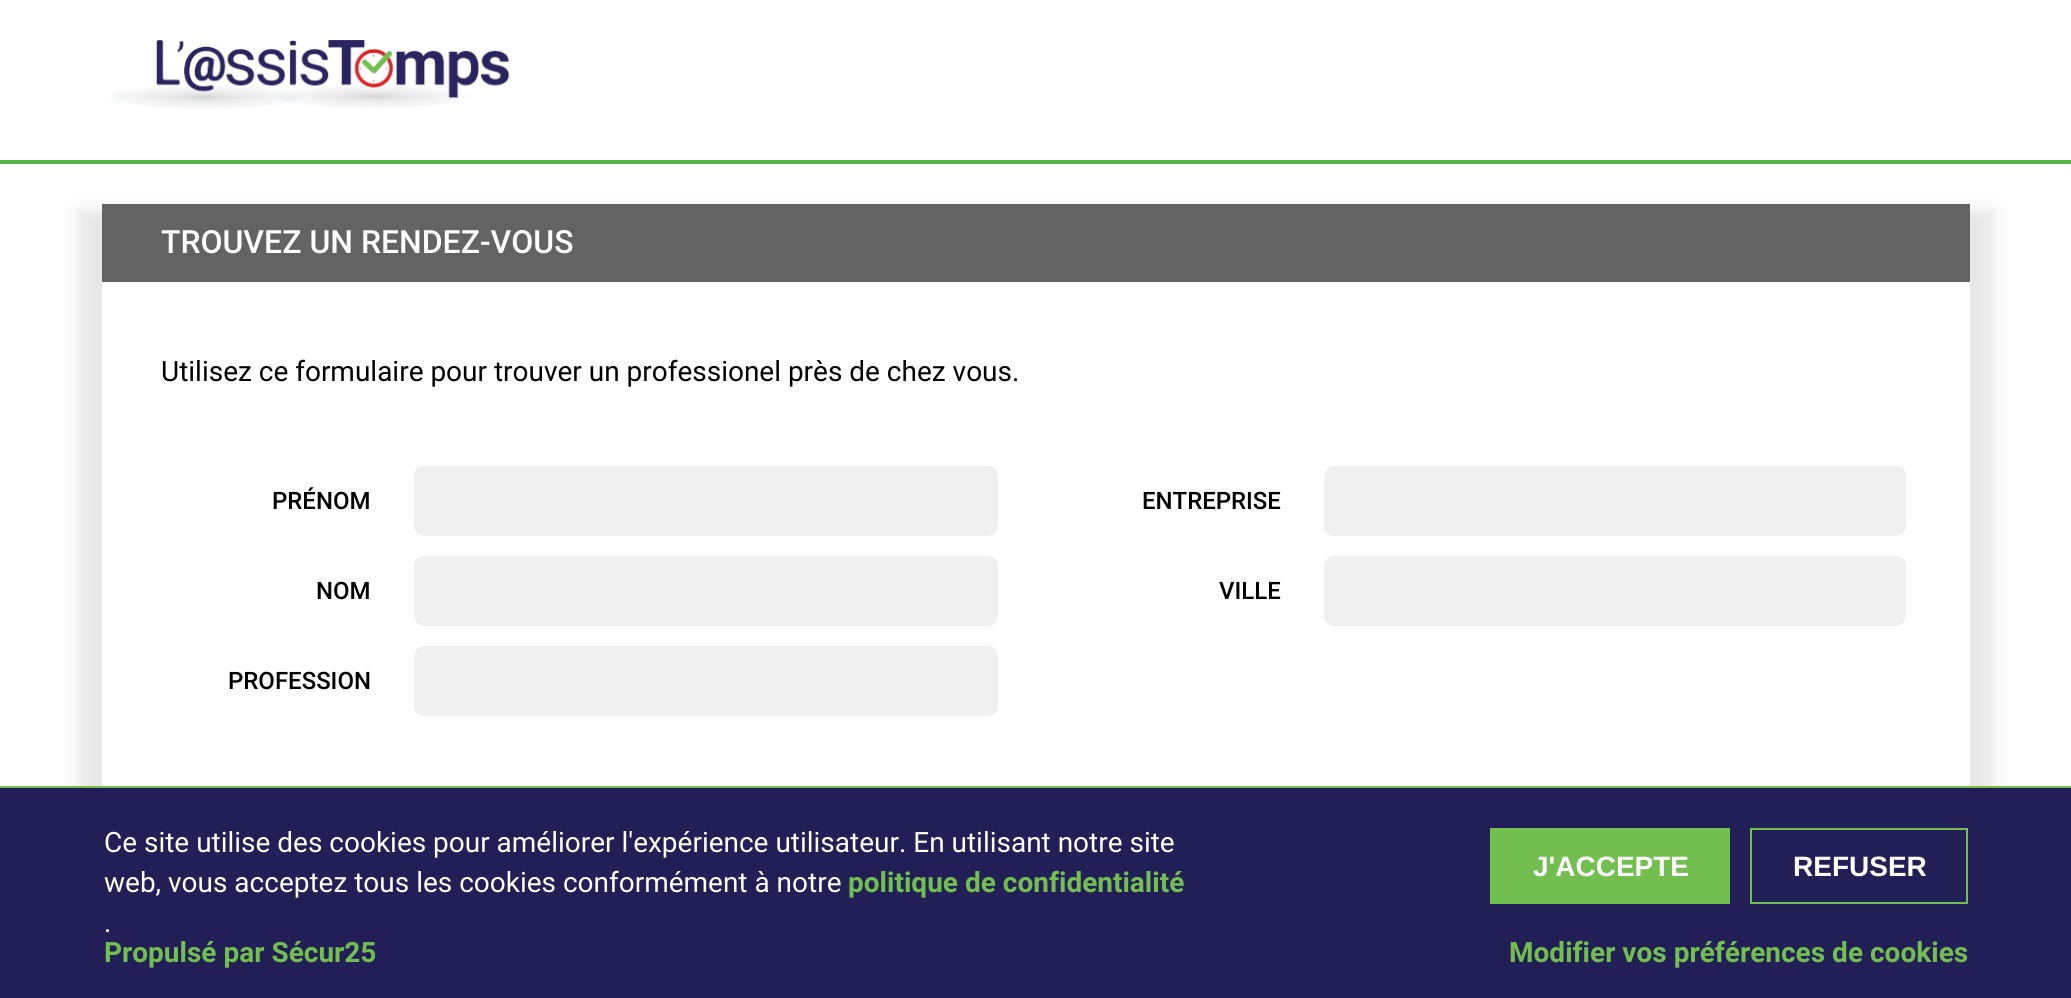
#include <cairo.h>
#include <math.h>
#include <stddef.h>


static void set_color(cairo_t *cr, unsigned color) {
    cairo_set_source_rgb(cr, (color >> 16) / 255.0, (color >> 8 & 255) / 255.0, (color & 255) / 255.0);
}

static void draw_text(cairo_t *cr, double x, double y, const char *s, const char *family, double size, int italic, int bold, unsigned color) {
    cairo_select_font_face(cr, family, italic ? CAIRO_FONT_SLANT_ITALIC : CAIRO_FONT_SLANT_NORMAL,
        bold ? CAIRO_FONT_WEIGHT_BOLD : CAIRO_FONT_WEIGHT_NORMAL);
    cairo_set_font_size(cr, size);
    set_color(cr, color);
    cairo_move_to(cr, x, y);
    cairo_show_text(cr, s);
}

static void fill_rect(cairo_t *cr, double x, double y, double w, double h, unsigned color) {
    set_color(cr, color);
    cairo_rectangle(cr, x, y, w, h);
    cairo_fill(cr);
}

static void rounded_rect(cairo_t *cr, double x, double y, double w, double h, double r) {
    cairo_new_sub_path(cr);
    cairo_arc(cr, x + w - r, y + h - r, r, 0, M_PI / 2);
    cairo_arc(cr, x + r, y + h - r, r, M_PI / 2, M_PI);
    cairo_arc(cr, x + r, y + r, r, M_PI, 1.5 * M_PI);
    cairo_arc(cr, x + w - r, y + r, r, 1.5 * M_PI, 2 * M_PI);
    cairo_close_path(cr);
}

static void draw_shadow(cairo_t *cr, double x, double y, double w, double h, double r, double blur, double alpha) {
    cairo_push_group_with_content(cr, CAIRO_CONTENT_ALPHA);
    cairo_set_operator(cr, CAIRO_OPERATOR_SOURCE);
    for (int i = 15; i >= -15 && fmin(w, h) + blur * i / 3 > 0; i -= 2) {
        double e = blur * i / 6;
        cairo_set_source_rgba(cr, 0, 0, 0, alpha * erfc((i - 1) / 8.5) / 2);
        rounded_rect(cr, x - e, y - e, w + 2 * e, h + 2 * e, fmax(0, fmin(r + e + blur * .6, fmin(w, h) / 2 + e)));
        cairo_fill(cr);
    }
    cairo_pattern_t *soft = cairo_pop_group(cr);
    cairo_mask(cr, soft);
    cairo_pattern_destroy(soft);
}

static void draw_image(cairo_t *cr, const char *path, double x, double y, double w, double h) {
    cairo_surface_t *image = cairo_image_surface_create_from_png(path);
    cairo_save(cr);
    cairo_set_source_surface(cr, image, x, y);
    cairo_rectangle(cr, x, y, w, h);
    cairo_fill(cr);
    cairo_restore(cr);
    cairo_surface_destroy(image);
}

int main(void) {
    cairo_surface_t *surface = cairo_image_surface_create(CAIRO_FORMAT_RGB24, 2071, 998);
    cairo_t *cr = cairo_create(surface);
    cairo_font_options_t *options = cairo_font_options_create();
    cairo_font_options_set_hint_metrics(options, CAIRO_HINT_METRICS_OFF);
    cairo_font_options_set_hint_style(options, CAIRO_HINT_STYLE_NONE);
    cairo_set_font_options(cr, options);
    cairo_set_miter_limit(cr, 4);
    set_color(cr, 0xFFFFFF);
    cairo_paint(cr);
    fill_rect(cr, 0, 160, 2071, 4, 0x59B547);
    draw_image(cr, "assets/img1.png", 110, 40, 400, 68);
    cairo_save(cr);
    cairo_set_fill_rule(cr, CAIRO_FILL_RULE_EVEN_ODD);
    cairo_new_path(cr);
    cairo_move_to(cr, 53, 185);
    cairo_line_to(cr, 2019, 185);
    cairo_line_to(cr, 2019, 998);
    cairo_line_to(cr, 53, 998);
    cairo_close_path(cr);
    cairo_move_to(cr, 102, 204);
    cairo_line_to(cr, 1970, 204);
    cairo_line_to(cr, 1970, 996);
    cairo_line_to(cr, 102, 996);
    cairo_close_path(cr);
    cairo_clip(cr);
    set_color(cr, 0xE7E7E7);
    draw_shadow(cr, 78, 210, 1916, 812, 0, 8, 1);
    cairo_restore(cr);
    fill_rect(cr, 102, 204, 1868, 78, 0x636363);
    draw_text(cr, 161, 253, "TROUVEZ UN RENDEZ-VOUS", "Roboto Medium", 32, 0, 0, 0xFFFFFF);
    draw_text(cr, 161, 381, "Utilisez ce formulaire pour trouver un professionel près de chez vous.", "Roboto", 28, 0, 0, 0x000000);
    draw_text(cr, 272, 509, "PRÉNOM", "Roboto Medium", 24, 0, 0, 0x000000);
    set_color(cr, 0xF0F0F0);
    rounded_rect(cr, 414, 466, 584, 70, 10);
    cairo_fill(cr);
    draw_text(cr, 316, 599, "NOM", "Roboto Medium", 24, 0, 0, 0x000000);
    set_color(cr, 0xF0F0F0);
    rounded_rect(cr, 414, 556, 584, 70, 10);
    cairo_fill(cr);
    draw_text(cr, 228, 689, "PROFESSION", "Roboto Medium", 24, 0, 0, 0x000000);
    set_color(cr, 0xF0F0F0);
    rounded_rect(cr, 414, 646, 584, 70, 10);
    cairo_fill(cr);
    draw_text(cr, 1142, 509, "ENTREPRISE", "Roboto Medium", 24, 0, 0, 0x000000);
    set_color(cr, 0xF0F0F0);
    rounded_rect(cr, 1324, 466, 582, 70, 10);
    cairo_fill(cr);
    draw_text(cr, 1219, 599, "VILLE", "Roboto Medium", 24, 0, 0, 0x000000);
    set_color(cr, 0xF0F0F0);
    rounded_rect(cr, 1324, 556, 582, 70, 10);
    cairo_fill(cr);
    fill_rect(cr, 0, 788, 2071, 210, 0x221F56);
    fill_rect(cr, 0, 786, 2071, 2, 0x72BE4F);
    draw_text(cr, 104, 852, "Ce site utilise des cookies pour améliorer l'expérience utilisateur. En utilisant notre site", "Roboto", 28, 0, 0, 0xFFFFFF);
    draw_text(cr, 104, 892, "web, vous acceptez tous les cookies conformément à notre", "Roboto", 28, 0, 0, 0xFFFFFF);
    draw_text(cr, 848, 892, "politique de confidentialité", "Roboto", 28, 0, 1, 0x72BE4F);
    draw_text(cr, 104, 932, ".", "Roboto", 28, 0, 0, 0xFFFFFF);
    fill_rect(cr, 1490, 828, 240, 76, 0x72BE4F);
    draw_text(cr, 1533, 876, "J'ACCEPTE", "Liberation Sans", 28, 0, 1, 0xFFFFFF);
    cairo_rectangle(cr, 1751, 829, 216, 74);
    set_color(cr, 0x72BE4F);
    cairo_stroke(cr);
    draw_text(cr, 1793, 876, "REFUSER", "Liberation Sans", 28, 0, 1, 0xFFFFFF);
    draw_text(cr, 1509, 962, "Modifier vos préférences de cookies", "Roboto", 28, 0, 1, 0x72BE4F);
    draw_text(cr, 104, 962, "Propulsé par Sécur25", "Roboto", 28, 0, 1, 0x72BE4F);
    cairo_surface_write_to_png(surface, "output.png");
    cairo_font_options_destroy(options);
    cairo_destroy(cr);
    cairo_surface_destroy(surface);
    return 0;
}
